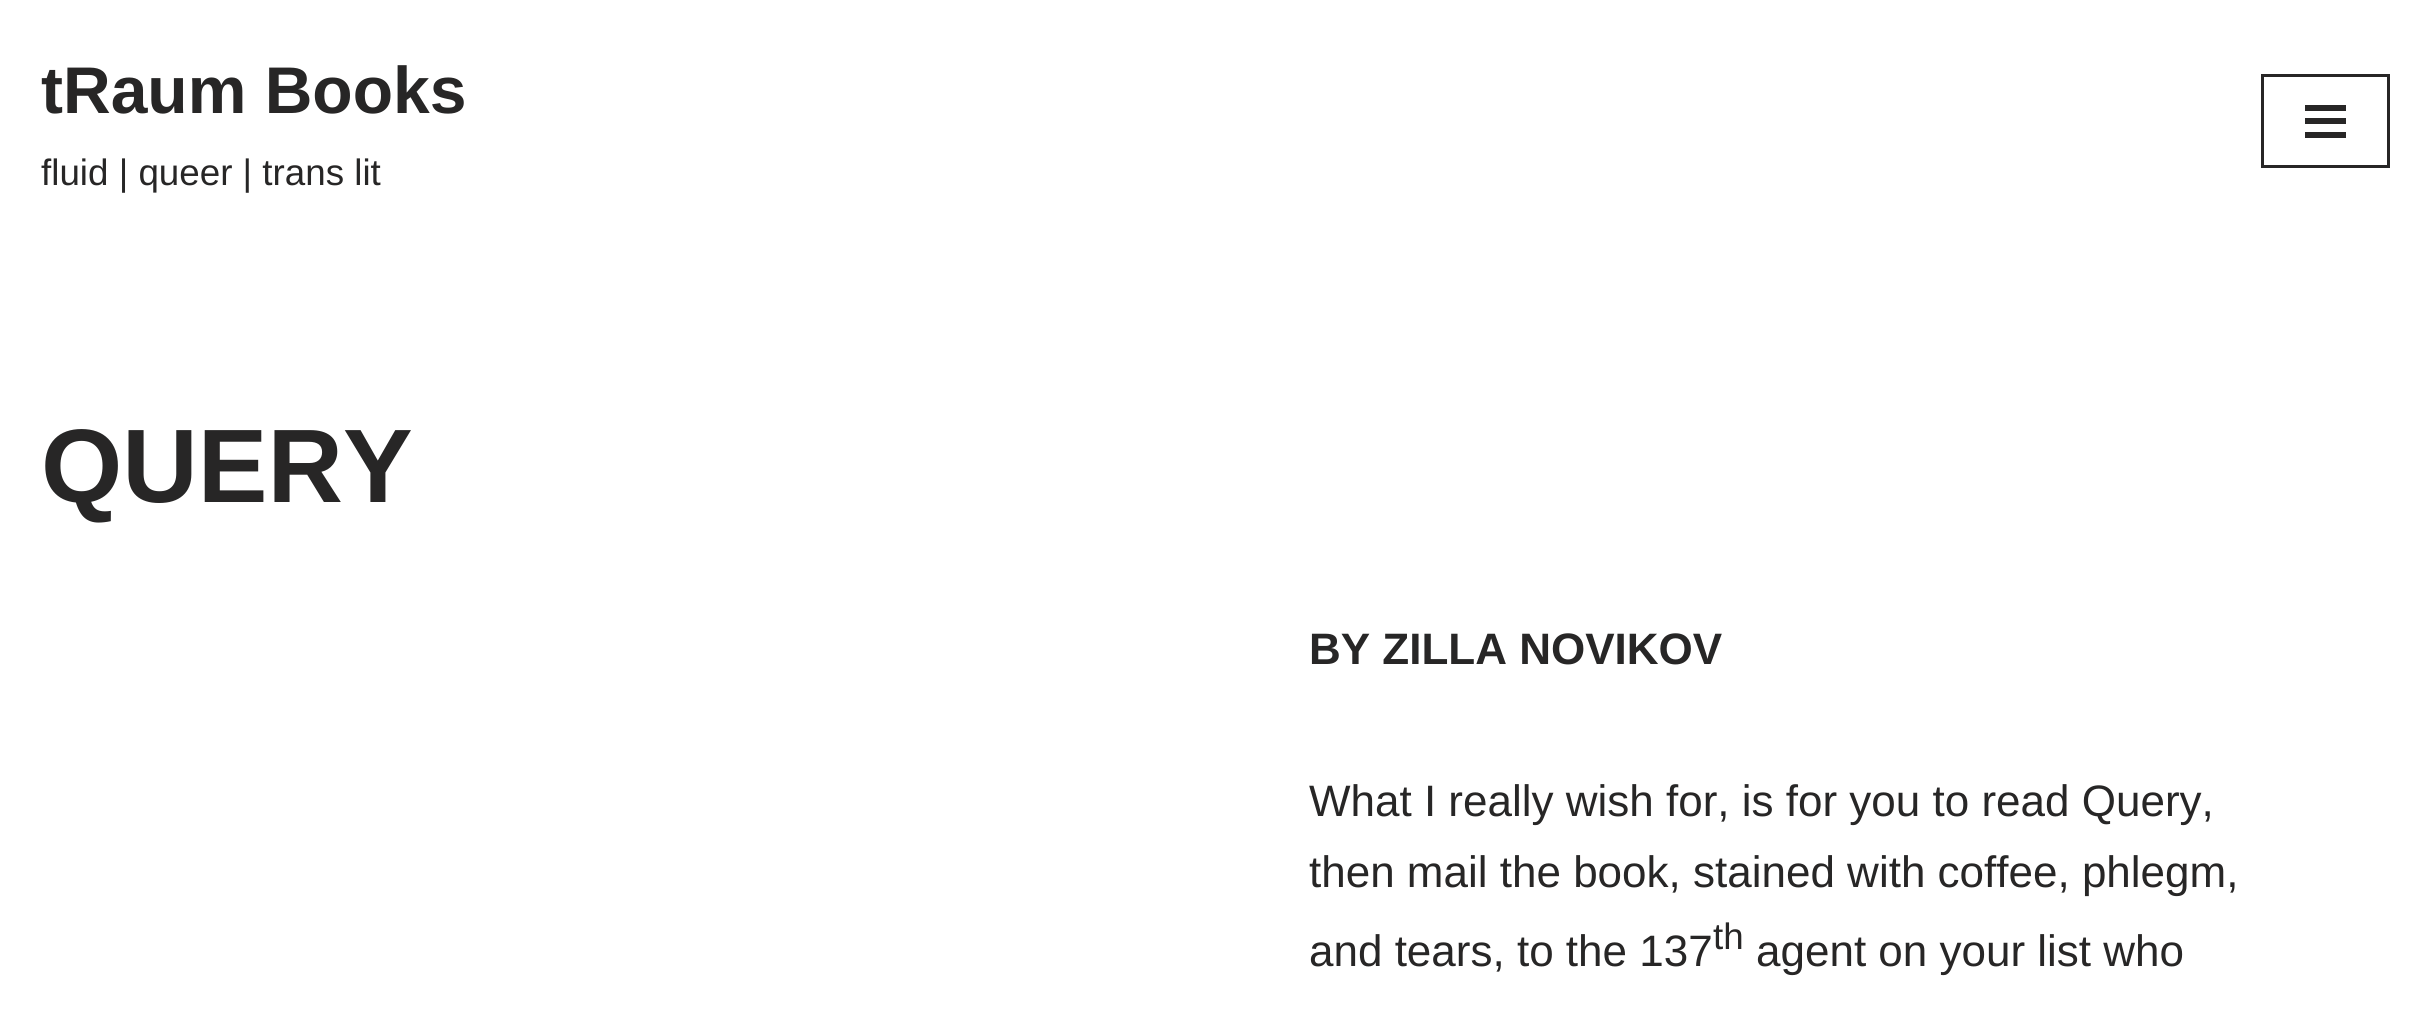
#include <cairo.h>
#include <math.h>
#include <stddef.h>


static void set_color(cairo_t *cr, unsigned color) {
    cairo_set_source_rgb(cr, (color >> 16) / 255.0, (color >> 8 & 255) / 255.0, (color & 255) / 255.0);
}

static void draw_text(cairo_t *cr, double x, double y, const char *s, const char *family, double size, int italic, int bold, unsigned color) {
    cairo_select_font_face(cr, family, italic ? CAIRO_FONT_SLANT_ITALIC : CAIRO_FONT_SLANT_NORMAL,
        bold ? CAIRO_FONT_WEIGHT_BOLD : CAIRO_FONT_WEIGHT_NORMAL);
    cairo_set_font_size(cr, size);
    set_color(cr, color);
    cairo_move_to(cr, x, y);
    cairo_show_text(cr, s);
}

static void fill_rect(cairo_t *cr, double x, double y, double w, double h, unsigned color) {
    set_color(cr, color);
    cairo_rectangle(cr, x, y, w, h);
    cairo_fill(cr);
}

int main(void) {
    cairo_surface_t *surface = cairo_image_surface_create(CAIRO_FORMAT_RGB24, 2429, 1025);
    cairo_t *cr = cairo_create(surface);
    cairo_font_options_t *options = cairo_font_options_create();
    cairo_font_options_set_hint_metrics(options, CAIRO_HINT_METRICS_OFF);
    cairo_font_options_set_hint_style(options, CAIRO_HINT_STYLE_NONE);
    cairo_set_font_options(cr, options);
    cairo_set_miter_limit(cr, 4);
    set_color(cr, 0xFFFFFF);
    cairo_paint(cr);
    draw_text(cr, 41, 113, "tRaum Books", "Liberation Sans", 66, 0, 1, 0x272626);
    draw_text(cr, 41, 185, "fluid | queer | trans lit", "Liberation Sans", 36.75, 0, 0, 0x272626);
    cairo_rectangle(cr, 2262.5, 75.5, 126, 91);
    cairo_set_line_width(cr, 3);
    cairo_stroke(cr);
    fill_rect(cr, 2305, 105, 41, 6, 0x272626);
    fill_rect(cr, 2305, 118, 41, 6, 0x272626);
    fill_rect(cr, 2305, 132, 41, 6, 0x272626);
    draw_text(cr, 41, 502, "QUERY", "Liberation Sans", 104.5, 0, 1, 0x272626);
    draw_text(cr, 1309, 664, "BY ZILLA NOVIKOV", "Liberation Sans", 44, 0, 1, 0x272626);
    draw_text(cr, 1309, 816, "What I really wish for, is for you to read Query,", "Liberation Sans", 44, 0, 0, 0x272626);
    draw_text(cr, 1309, 887, "then mail the book, stained with coffee, phlegm,", "Liberation Sans", 44, 0, 0, 0x272626);
    draw_text(cr, 1309, 966, "and tears, to the 137", "Liberation Sans", 44, 0, 0, 0x272626);
    draw_text(cr, 1713, 949, "th", "Liberation Sans", 36.75, 0, 0, 0x272626);
    draw_text(cr, 1756, 966, "agent on your list who", "Liberation Sans", 44, 0, 0, 0x272626);
    cairo_surface_write_to_png(surface, "output.png");
    cairo_font_options_destroy(options);
    cairo_destroy(cr);
    cairo_surface_destroy(surface);
    return 0;
}
